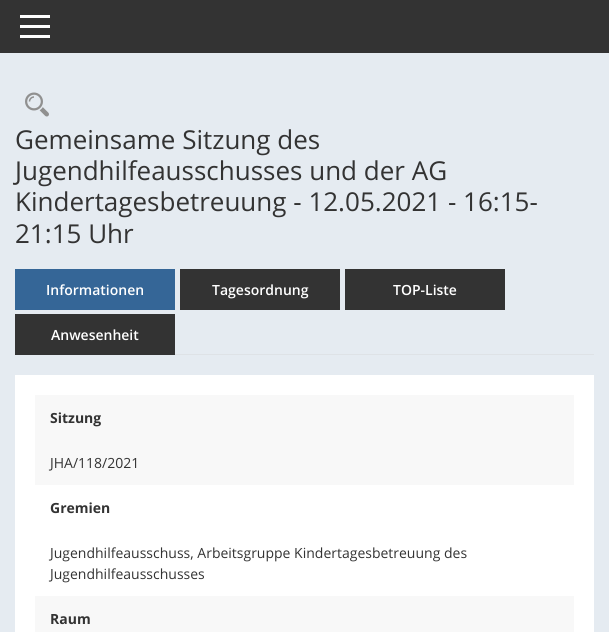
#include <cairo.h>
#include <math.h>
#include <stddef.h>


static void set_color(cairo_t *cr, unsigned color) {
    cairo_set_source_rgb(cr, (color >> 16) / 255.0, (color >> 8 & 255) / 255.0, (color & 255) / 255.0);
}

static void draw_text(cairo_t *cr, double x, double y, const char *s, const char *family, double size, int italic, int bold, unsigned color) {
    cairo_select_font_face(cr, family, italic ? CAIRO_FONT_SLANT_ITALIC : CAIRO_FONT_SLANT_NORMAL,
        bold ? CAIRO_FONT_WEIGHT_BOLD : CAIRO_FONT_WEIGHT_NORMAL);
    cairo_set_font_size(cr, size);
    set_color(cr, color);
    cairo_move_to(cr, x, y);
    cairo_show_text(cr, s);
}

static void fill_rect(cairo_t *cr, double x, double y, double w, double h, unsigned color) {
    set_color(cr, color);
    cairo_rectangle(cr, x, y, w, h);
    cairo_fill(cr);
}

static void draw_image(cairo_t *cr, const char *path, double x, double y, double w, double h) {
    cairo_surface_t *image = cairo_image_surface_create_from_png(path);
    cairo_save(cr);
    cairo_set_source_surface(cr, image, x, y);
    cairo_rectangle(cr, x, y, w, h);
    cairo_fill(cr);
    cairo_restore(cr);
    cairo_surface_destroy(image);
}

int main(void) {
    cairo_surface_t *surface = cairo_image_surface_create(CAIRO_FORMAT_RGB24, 609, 632);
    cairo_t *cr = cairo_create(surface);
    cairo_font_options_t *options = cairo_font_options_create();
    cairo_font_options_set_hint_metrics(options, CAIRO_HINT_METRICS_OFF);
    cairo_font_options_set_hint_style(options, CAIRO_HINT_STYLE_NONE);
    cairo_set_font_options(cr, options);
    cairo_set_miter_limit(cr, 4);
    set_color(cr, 0xE5EBF1);
    cairo_paint(cr);
    fill_rect(cr, 0, 0, 609, 53, 0x333333);
    fill_rect(cr, 20, 15, 30, 3, 0xFFFFFF);
    fill_rect(cr, 20, 25, 30, 3, 0xFFFFFF);
    fill_rect(cr, 20, 35, 30, 3, 0xFFFFFF);
    draw_image(cr, "assets/img1.png", 25, 92, 24, 25);
    draw_text(cr, 15, 149, "Gemeinsame Sitzung des", "Open Sans", 26, 0, 0, 0x333333);
    draw_text(cr, 15, 180, "Jugendhilfeausschusses und der AG", "Open Sans", 26, 0, 0, 0x333333);
    draw_text(cr, 15, 211, "Kindertagesbetreuung - 12.05.2021 - 16:15-", "Open Sans", 26, 0, 0, 0x333333);
    draw_text(cr, 15, 243, "21:15 Uhr", "Open Sans", 26, 0, 0, 0x333333);
    fill_rect(cr, 175, 354, 419, 1, 0xDEE2E6);
    fill_rect(cr, 15, 269, 160, 41, 0x356697);
    draw_text(cr, 46, 295, "Informationen", "Open Sans SemiBold", 14, 0, 0, 0xFFFFFF);
    fill_rect(cr, 180, 269, 160, 41, 0x333333);
    draw_text(cr, 212, 295, "Tagesordnung", "Open Sans SemiBold", 14, 0, 0, 0xFFFFFF);
    fill_rect(cr, 345, 269, 160, 41, 0x333333);
    draw_text(cr, 393, 295, "TOP-Liste", "Open Sans SemiBold", 14, 0, 0, 0xFFFFFF);
    fill_rect(cr, 15, 314, 160, 41, 0x333333);
    draw_text(cr, 51, 340, "Anwesenheit", "Open Sans SemiBold", 14, 0, 0, 0xFFFFFF);
    fill_rect(cr, 15, 375, 579, 257, 0xFFFFFF);
    fill_rect(cr, 35, 395, 539, 90, 0xF8F8F8);
    draw_text(cr, 50, 423, "Sitzung", "Open Sans", 14, 0, 1, 0x333333);
    draw_text(cr, 50, 468, "JHA/118/2021", "Open Sans", 14, 0, 0, 0x333333);
    draw_text(cr, 50, 513, "Gremien", "Open Sans", 14, 0, 1, 0x333333);
    draw_text(cr, 50, 558, "Jugendhilfeausschuss, Arbeitsgruppe Kindertagesbetreuung des", "Open Sans", 14, 0, 0, 0x333333);
    draw_text(cr, 50, 579, "Jugendhilfeausschusses", "Open Sans", 14, 0, 0, 0x333333);
    fill_rect(cr, 35, 596, 539, 36, 0xF8F8F8);
    draw_text(cr, 50, 624, "Raum", "Open Sans", 14, 0, 1, 0x333333);
    cairo_surface_write_to_png(surface, "output.png");
    cairo_font_options_destroy(options);
    cairo_destroy(cr);
    cairo_surface_destroy(surface);
    return 0;
}
